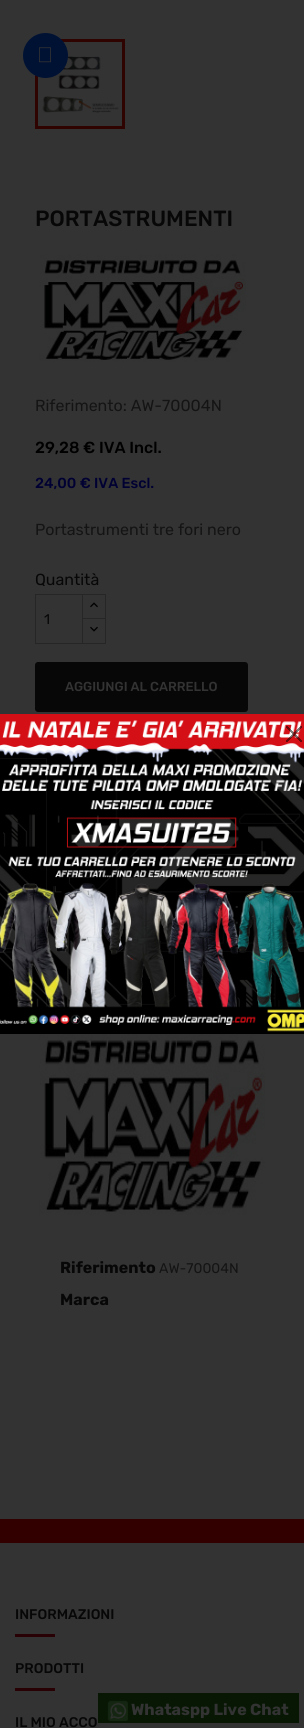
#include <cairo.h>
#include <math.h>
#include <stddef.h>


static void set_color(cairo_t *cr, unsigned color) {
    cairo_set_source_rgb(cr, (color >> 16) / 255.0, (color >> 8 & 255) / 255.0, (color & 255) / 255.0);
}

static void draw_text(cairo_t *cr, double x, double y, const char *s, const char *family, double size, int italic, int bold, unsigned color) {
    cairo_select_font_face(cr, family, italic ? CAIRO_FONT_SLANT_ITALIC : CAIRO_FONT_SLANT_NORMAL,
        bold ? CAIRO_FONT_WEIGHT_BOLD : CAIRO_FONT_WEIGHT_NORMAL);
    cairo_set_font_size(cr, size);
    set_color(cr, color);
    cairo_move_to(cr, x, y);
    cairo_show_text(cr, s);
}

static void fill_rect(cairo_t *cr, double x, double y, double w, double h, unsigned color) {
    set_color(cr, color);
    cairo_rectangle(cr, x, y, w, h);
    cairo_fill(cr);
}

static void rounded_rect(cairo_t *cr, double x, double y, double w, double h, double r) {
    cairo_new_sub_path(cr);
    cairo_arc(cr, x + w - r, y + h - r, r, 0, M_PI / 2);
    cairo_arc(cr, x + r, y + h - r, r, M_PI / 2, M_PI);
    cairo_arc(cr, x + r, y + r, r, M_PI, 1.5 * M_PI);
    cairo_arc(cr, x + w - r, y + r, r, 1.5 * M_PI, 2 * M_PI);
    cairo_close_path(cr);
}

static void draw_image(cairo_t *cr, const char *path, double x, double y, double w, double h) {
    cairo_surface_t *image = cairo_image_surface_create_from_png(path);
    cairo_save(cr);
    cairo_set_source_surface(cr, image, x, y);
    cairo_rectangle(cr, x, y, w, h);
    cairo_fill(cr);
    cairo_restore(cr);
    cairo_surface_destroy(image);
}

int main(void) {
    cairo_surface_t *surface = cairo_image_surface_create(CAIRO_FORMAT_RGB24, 304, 1728);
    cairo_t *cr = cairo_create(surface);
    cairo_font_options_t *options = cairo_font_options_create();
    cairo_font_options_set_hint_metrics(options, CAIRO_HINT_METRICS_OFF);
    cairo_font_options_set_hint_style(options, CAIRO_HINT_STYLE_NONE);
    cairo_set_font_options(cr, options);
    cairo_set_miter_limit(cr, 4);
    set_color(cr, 0x333333);
    cairo_paint(cr);
    cairo_rectangle(cr, 36.5, 40.5, 87, 87);
    set_color(cr, 0x2F0400);
    cairo_set_line_width(cr, 3);
    cairo_stroke(cr);
    draw_image(cr, "assets/img2.png", 42, 56, 77, 57);
    set_color(cr, 0x001233);
    cairo_arc(cr, 45.5, 55.5, 22.5, 0, 2 * M_PI);
    cairo_fill(cr);
    draw_image(cr, "assets/img1.png", 39, 47, 12, 16);
    draw_text(cr, 35, 226, "PORTASTRUMENTI", "Rubik Medium", 22, 0, 0, 0x070707);
    draw_image(cr, "assets/img3.png", 39, 254, 207, 108);
    draw_text(cr, 35, 411, "Riferimento: AW-70004N", "Rubik", 16, 0, 0, 0x141414);
    draw_text(cr, 35, 453, "29,28 € IVA Incl.", "Rubik Medium", 16, 0, 0, 0x000000);
    draw_text(cr, 35, 488, "24,00 € IVA Escl.", "Rubik Medium", 14.5, 0, 0, 0x000033);
    draw_text(cr, 35, 535, "Portastrumenti tre fori nero", "Rubik", 16, 0, 0, 0x141414);
    draw_text(cr, 35, 585, "Quantità", "Rubik", 16, 0, 0, 0x070707);
    cairo_rectangle(cr, 82.5, 594.5, 23, 25);
    set_color(cr, 0x262626);
    cairo_set_line_width(cr, 1);
    cairo_stroke(cr);
    fill_rect(cr, 83, 619, 22, 1, 0x333333);
    cairo_rectangle(cr, 82.5, 618.5, 23, 25);
    set_color(cr, 0x262626);
    cairo_stroke(cr);
    cairo_rectangle(cr, 35.5, 594.5, 47, 49);
    cairo_stroke(cr);
    draw_text(cr, 44, 624, "1", "Rubik", 14, 0, 0, 0x070707);
    draw_image(cr, "assets/img4.png", 90, 602, 8, 6);
    draw_image(cr, "assets/img5.png", 90, 626, 8, 6);
    rounded_rect(cr, 35, 662, 213, 50, 3);
    cairo_fill(cr);
    draw_text(cr, 65, 691, "AGGIUNGI AL CARRELLO", "Rubik Medium", 13, 0, 0, 0x333333);
    draw_image(cr, "assets/img6.png", 39, 1034, 226, 181);
    draw_text(cr, 60, 1273, "Riferimento", "Rubik", 16, 0, 1, 0x070707);
    draw_text(cr, 159, 1273, "AW-70004N", "Rubik", 14, 0, 0, 0x141414);
    draw_text(cr, 60, 1305, "Marca", "Rubik", 16, 0, 1, 0x070707);
    fill_rect(cr, 0, 1519, 304, 24, 0x330000);
    draw_image(cr, "assets/img7.png", 0, 714, 304, 320);
    draw_image(cr, "assets/img8.png", 286, 726, 16, 16);
    draw_text(cr, 15, 1619, "INFORMAZIONI", "Rubik Medium", 14, 0, 0, 0x070707);
    fill_rect(cr, 15, 1634, 40, 3, 0x270104);
    draw_text(cr, 15, 1673, "PRODOTTI", "Rubik Medium", 14, 0, 0, 0x070707);
    fill_rect(cr, 15, 1688, 40, 3, 0x270104);
    fill_rect(cr, 98, 1693, 201, 30, 0x071704);
    draw_image(cr, "assets/img9.png", 107, 1700, 21, 21);
    draw_text(cr, 131, 1715, "Whataspp Live Chat", "Rubik", 16, 0, 1, 0x333333);
    draw_text(cr, 15, 1727, "IL MIO ACCO", "Rubik Medium", 14, 0, 0, 0x070707);
    cairo_surface_write_to_png(surface, "output.png");
    cairo_font_options_destroy(options);
    cairo_destroy(cr);
    cairo_surface_destroy(surface);
    return 0;
}
